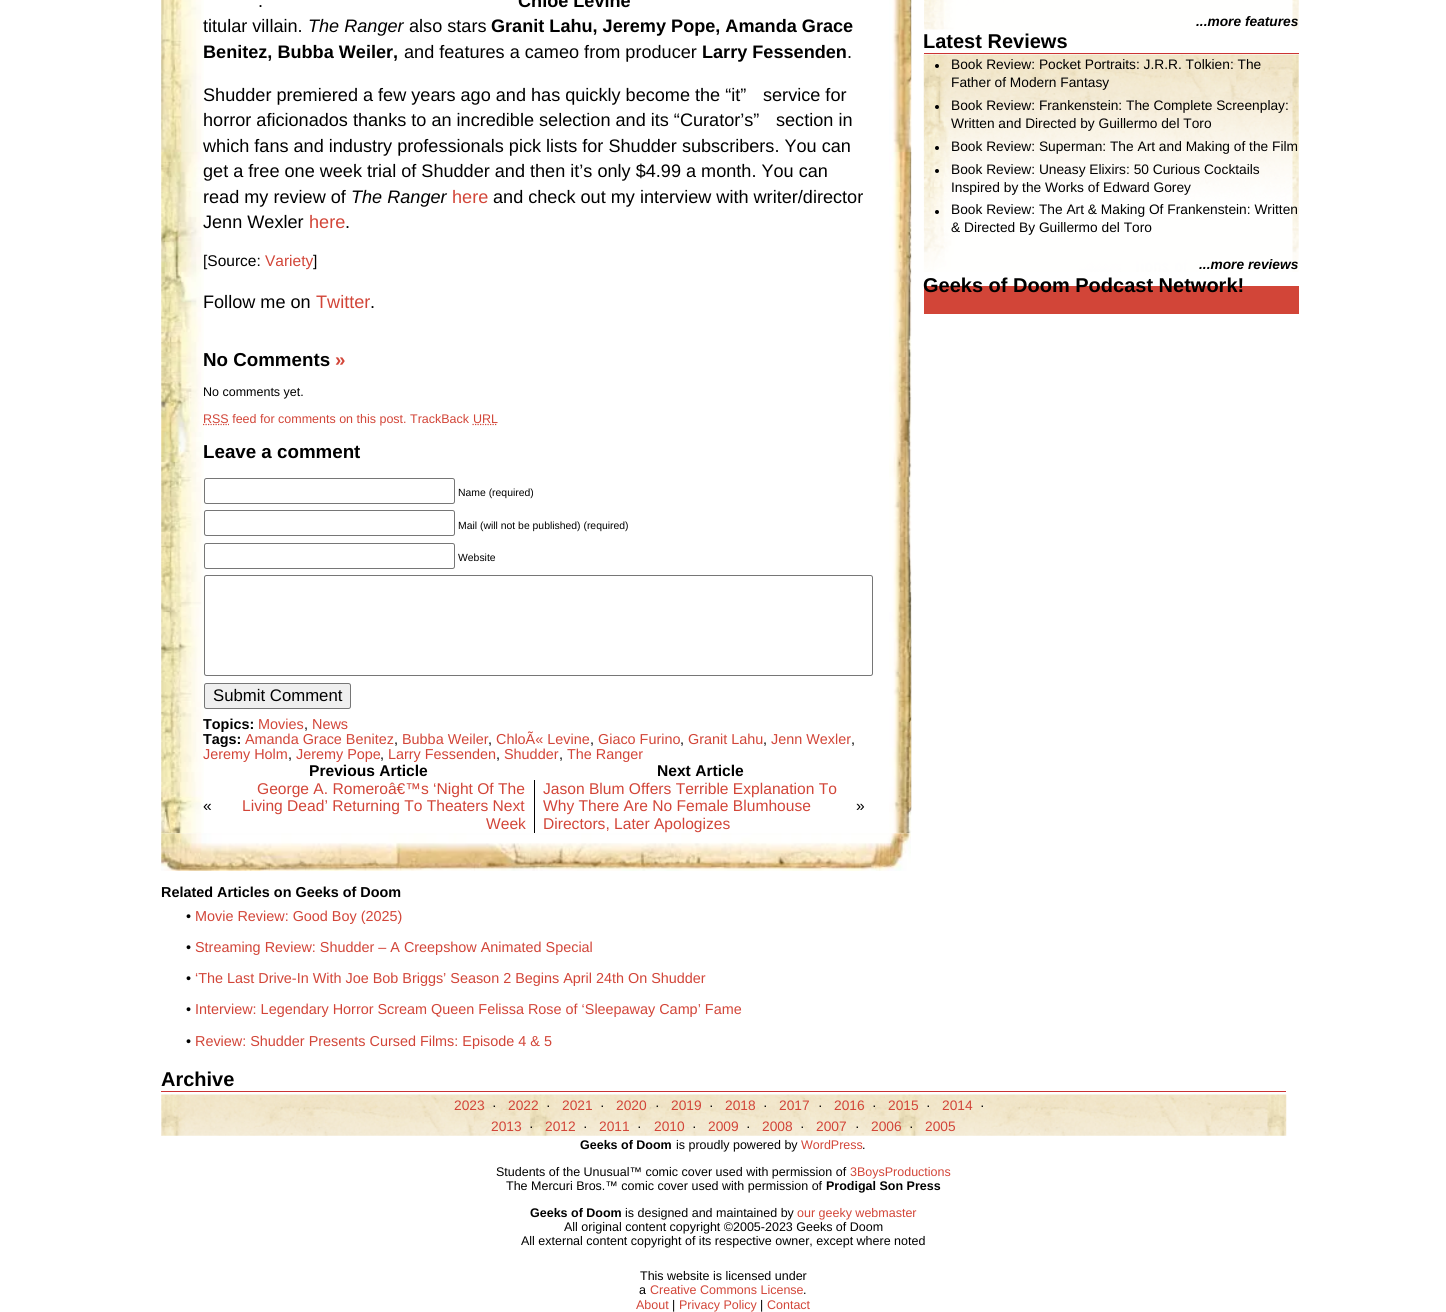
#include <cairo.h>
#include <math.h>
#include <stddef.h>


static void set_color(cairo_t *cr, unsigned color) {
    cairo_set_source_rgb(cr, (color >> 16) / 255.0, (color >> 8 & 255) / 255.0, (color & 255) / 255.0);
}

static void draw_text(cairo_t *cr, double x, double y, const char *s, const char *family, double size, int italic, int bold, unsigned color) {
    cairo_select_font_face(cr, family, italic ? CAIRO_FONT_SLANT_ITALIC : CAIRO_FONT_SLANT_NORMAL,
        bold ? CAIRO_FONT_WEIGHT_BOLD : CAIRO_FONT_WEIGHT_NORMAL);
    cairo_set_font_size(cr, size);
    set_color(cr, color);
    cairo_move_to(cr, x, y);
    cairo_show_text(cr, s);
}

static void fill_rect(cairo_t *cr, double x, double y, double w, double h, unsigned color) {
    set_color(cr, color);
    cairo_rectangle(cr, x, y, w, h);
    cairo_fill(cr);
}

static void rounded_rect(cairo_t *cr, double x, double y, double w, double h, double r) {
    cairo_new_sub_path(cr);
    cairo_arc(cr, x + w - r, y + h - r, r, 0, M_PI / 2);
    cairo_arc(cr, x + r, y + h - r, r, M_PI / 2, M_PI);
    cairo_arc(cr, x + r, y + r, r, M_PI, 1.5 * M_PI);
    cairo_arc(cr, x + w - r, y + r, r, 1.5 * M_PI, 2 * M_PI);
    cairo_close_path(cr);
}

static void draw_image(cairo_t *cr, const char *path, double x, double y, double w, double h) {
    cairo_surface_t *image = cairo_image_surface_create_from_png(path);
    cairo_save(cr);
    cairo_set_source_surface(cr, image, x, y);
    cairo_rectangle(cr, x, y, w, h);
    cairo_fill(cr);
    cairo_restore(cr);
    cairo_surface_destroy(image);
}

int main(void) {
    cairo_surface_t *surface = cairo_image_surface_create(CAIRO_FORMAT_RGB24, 1446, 1312);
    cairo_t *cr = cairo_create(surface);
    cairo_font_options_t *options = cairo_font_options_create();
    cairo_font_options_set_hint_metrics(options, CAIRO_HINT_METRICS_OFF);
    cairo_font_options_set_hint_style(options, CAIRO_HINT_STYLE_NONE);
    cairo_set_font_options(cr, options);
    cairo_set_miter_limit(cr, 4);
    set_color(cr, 0xFFFFFF);
    cairo_paint(cr);
    draw_image(cr, "assets/img1.png", 161, 0, 43, 834);
    draw_text(cr, 258, 7, ".", "Liberation Sans", 18.1, 0, 0, 0x000000);
    draw_text(cr, 518, 7, "Chloe Levine", "Liberation Sans", 18.1, 0, 1, 0x000000);
    draw_text(cr, 203, 32, "titular villain.", "Liberation Sans", 18.1, 0, 0, 0x000000);
    draw_text(cr, 308, 32, "The Ranger", "Liberation Sans", 18.1, 1, 0, 0x000000);
    draw_text(cr, 409, 32, "also stars", "Liberation Sans", 18.1, 0, 0, 0x000000);
    draw_text(cr, 491, 32, "Granit Lahu, Jeremy Pope, Amanda Grace", "Liberation Sans", 18.1, 0, 1, 0x000000);
    draw_text(cr, 203, 58, "Benitez, Bubba Weiler,", "Liberation Sans", 18.1, 0, 1, 0x000000);
    draw_text(cr, 404, 58, "and features a cameo from producer", "Liberation Sans", 18.1, 0, 0, 0x000000);
    draw_text(cr, 702, 58, "Larry Fessenden", "Liberation Sans", 18.1, 0, 1, 0x000000);
    draw_text(cr, 847, 58, ".", "Liberation Sans", 18.1, 0, 0, 0x000000);
    draw_text(cr, 203, 101, "Shudder premiered a few years ago and has quickly become the “it”", "Liberation Sans", 18.1, 0, 0, 0x000000);
    draw_text(cr, 763, 101, "service for", "Liberation Sans", 18.1, 0, 0, 0x000000);
    draw_text(cr, 203, 126, "horror aficionados thanks to an incredible selection and its “Curator’s”", "Liberation Sans", 18.1, 0, 0, 0x000000);
    draw_text(cr, 776, 126, "section in", "Liberation Sans", 18.1, 0, 0, 0x000000);
    draw_text(cr, 203, 152, "which fans and industry professionals pick lists for Shudder subscribers. You can", "Liberation Sans", 18.1, 0, 0, 0x000000);
    draw_text(cr, 203, 177, "get a free one week trial of Shudder and then it’s only $4.99 a month. You can", "Liberation Sans", 18.1, 0, 0, 0x000000);
    draw_text(cr, 203, 203, "read my review of", "Liberation Sans", 18.1, 0, 0, 0x000000);
    draw_text(cr, 351, 203, "The Ranger", "Liberation Sans", 18.1, 1, 0, 0x000000);
    draw_text(cr, 452, 203, "here", "Liberation Sans", 18.1, 0, 0, 0xD24538);
    draw_text(cr, 493, 203, "and check out my interview with writer/director", "Liberation Sans", 18.1, 0, 0, 0x000000);
    draw_text(cr, 203, 228, "Jenn Wexler", "Liberation Sans", 18.1, 0, 0, 0x000000);
    draw_text(cr, 309, 228, "here", "Liberation Sans", 18.1, 0, 0, 0xD24538);
    draw_text(cr, 345, 228, ".", "Liberation Sans", 18.1, 0, 0, 0x000000);
    draw_text(cr, 203, 266, "[Source:", "Liberation Sans", 15.5, 0, 0, 0x000000);
    draw_text(cr, 265, 266, "Variety", "Liberation Sans", 15.5, 0, 0, 0xD24538);
    draw_text(cr, 313, 266, "]", "Liberation Sans", 15.5, 0, 0, 0x000000);
    draw_text(cr, 203, 308, "Follow me on", "Liberation Sans", 18.1, 0, 0, 0x000000);
    draw_text(cr, 316, 308, "Twitter", "Liberation Sans", 18.1, 0, 0, 0xD24538);
    draw_text(cr, 370, 308, ".", "Liberation Sans", 18.1, 0, 0, 0x000000);
    draw_text(cr, 203, 366, "No Comments", "Liberation Sans", 18.75, 0, 1, 0x000000);
    draw_text(cr, 335, 366, "»", "Liberation Sans", 18.75, 0, 1, 0xD24538);
    draw_text(cr, 203, 396, "No comments yet.", "Liberation Sans", 12.5, 0, 0, 0x000000);
    cairo_new_path(cr);
    cairo_move_to(cr, 203, 424.5);
    cairo_line_to(cr, 229, 424.5);
    set_color(cr, 0xD24538);
    cairo_set_line_width(cr, 1.2);
    cairo_set_dash(cr, (double[]){1.25, 1.25}, 2, 0);
    cairo_stroke(cr);
    draw_text(cr, 203, 423, "RSS feed for comments on this post. TrackBack", "Liberation Sans", 12.5, 0, 0, 0xD24538);
    cairo_new_path(cr);
    cairo_move_to(cr, 472.5, 424.5);
    cairo_line_to(cr, 497.5, 424.5);
    cairo_stroke(cr);
    draw_text(cr, 473, 423, "URL", "Liberation Sans", 12.5, 0, 0, 0xD24538);
    draw_text(cr, 203, 458, "Leave a comment", "Liberation Sans", 18.75, 0, 1, 0x000000);
    rounded_rect(cr, 204.5, 478.5, 250, 25, 2);
    set_color(cr, 0x767676);
    cairo_set_line_width(cr, 1);
    cairo_set_dash(cr, NULL, 0, 0);
    cairo_stroke(cr);
    draw_text(cr, 458, 496, "Name (required)", "Liberation Sans", 10.4, 0, 0, 0x000000);
    rounded_rect(cr, 204.5, 510.5, 250, 25, 2);
    set_color(cr, 0x767676);
    cairo_stroke(cr);
    draw_text(cr, 458, 529, "Mail (will not be published) (required)", "Liberation Sans", 10.4, 0, 0, 0x000000);
    rounded_rect(cr, 204.5, 543.5, 250, 25, 2);
    set_color(cr, 0x767676);
    cairo_stroke(cr);
    draw_text(cr, 458, 561, "Website", "Liberation Sans", 10.4, 0, 0, 0x000000);
    rounded_rect(cr, 204.5, 575.5, 668, 100, 2);
    set_color(cr, 0x767676);
    cairo_stroke(cr);
    set_color(cr, 0xEFEFEF);
    rounded_rect(cr, 204.5, 683.5, 146, 25, 2);
    cairo_fill_preserve(cr);
    set_color(cr, 0x767676);
    cairo_stroke(cr);
    draw_text(cr, 213, 701, "Submit Comment", "Liberation Sans", 16.75, 0, 0, 0x000000);
    draw_text(cr, 203, 729, "Topics:", "Liberation Sans", 14.4, 0, 1, 0x000000);
    draw_text(cr, 258, 729, "Movies", "Liberation Sans", 14.4, 0, 0, 0xD24538);
    draw_text(cr, 304, 729, ",", "Liberation Sans", 14.4, 0, 0, 0x000000);
    draw_text(cr, 312, 729, "News", "Liberation Sans", 14.4, 0, 0, 0xD24538);
    draw_text(cr, 203, 744, "Tags:", "Liberation Sans", 14.4, 0, 1, 0x000000);
    draw_text(cr, 245, 744, "Amanda Grace Benitez", "Liberation Sans", 14.4, 0, 0, 0xD24538);
    draw_text(cr, 394, 744, ",", "Liberation Sans", 14.4, 0, 0, 0x000000);
    draw_text(cr, 402, 744, "Bubba Weiler", "Liberation Sans", 14.4, 0, 0, 0xD24538);
    draw_text(cr, 488, 744, ",", "Liberation Sans", 14.4, 0, 0, 0x000000);
    draw_text(cr, 496, 744, "ChloÃ« Levine", "Liberation Sans", 14.4, 0, 0, 0xD24538);
    draw_text(cr, 590, 744, ",", "Liberation Sans", 14.4, 0, 0, 0x000000);
    draw_text(cr, 598, 744, "Giaco Furino", "Liberation Sans", 14.4, 0, 0, 0xD24538);
    draw_text(cr, 680, 744, ",", "Liberation Sans", 14.4, 0, 0, 0x000000);
    draw_text(cr, 688, 744, "Granit Lahu", "Liberation Sans", 14.4, 0, 0, 0xD24538);
    draw_text(cr, 763, 744, ",", "Liberation Sans", 14.4, 0, 0, 0x000000);
    draw_text(cr, 771, 744, "Jenn Wexler", "Liberation Sans", 14.4, 0, 0, 0xD24538);
    draw_text(cr, 851, 744, ",", "Liberation Sans", 14.4, 0, 0, 0x000000);
    draw_text(cr, 203, 759, "Jeremy Holm", "Liberation Sans", 14.4, 0, 0, 0xD24538);
    draw_text(cr, 288, 759, ",", "Liberation Sans", 14.4, 0, 0, 0x000000);
    draw_text(cr, 296, 759, "Jeremy Pope", "Liberation Sans", 14.4, 0, 0, 0xD24538);
    draw_text(cr, 380, 759, ",", "Liberation Sans", 14.4, 0, 0, 0x000000);
    draw_text(cr, 388, 759, "Larry Fessenden", "Liberation Sans", 14.4, 0, 0, 0xD24538);
    draw_text(cr, 496, 759, ",", "Liberation Sans", 14.4, 0, 0, 0x000000);
    draw_text(cr, 504, 759, "Shudder", "Liberation Sans", 14.4, 0, 0, 0xD24538);
    draw_text(cr, 559, 759, ",", "Liberation Sans", 14.4, 0, 0, 0x000000);
    draw_text(cr, 567, 759, "The Ranger", "Liberation Sans", 14.4, 0, 0, 0xD24538);
    draw_text(cr, 309, 776, "Previous Article", "Liberation Sans", 15.6, 0, 1, 0x000000);
    draw_text(cr, 657, 776, "Next Article", "Liberation Sans", 15.6, 0, 1, 0x000000);
    draw_text(cr, 203, 811, "«", "Liberation Sans", 15.6, 0, 0, 0x000000);
    draw_text(cr, 257, 794, "George A. Romeroâ€™s ‘Night Of The", "Liberation Sans", 15.6, 0, 0, 0xD24538);
    draw_text(cr, 242, 811, "Living Dead’ Returning To Theaters Next", "Liberation Sans", 15.6, 0, 0, 0xD24538);
    draw_text(cr, 486, 829, "Week", "Liberation Sans", 15.6, 0, 0, 0xD24538);
    fill_rect(cr, 534, 780, 1, 53, 0x000000);
    draw_text(cr, 543, 794, "Jason Blum Offers Terrible Explanation To", "Liberation Sans", 15.6, 0, 0, 0xD24538);
    draw_text(cr, 543, 811, "Why There Are No Female Blumhouse", "Liberation Sans", 15.6, 0, 0, 0xD24538);
    draw_text(cr, 543, 829, "Directors, Later Apologizes", "Liberation Sans", 15.6, 0, 0, 0xD24538);
    draw_text(cr, 856, 811, "»", "Liberation Sans", 15.6, 0, 0, 0x000000);
    draw_image(cr, "assets/img2.png", 889, 0, 23, 834);
    draw_image(cr, "assets/img3.png", 161, 833, 750, 38);
    draw_text(cr, 161, 897, "Related Articles on Geeks of Doom", "Liberation Sans", 14.4, 0, 1, 0x000000);
    draw_text(cr, 186, 921, "•", "Liberation Sans", 14.4, 0, 0, 0x000000);
    draw_text(cr, 195, 921, "Movie Review: Good Boy (2025)", "Liberation Sans", 14.4, 0, 0, 0xD24538);
    draw_text(cr, 186, 952, "•", "Liberation Sans", 14.4, 0, 0, 0x000000);
    draw_text(cr, 195, 952, "Streaming Review: Shudder – A Creepshow Animated Special", "Liberation Sans", 14.4, 0, 0, 0xD24538);
    draw_text(cr, 186, 983, "•", "Liberation Sans", 14.4, 0, 0, 0x000000);
    draw_text(cr, 195, 983, "‘The Last Drive-In With Joe Bob Briggs’ Season 2 Begins April 24th On Shudder", "Liberation Sans", 14.4, 0, 0, 0xD24538);
    draw_text(cr, 186, 1014, "•", "Liberation Sans", 14.4, 0, 0, 0x000000);
    draw_text(cr, 195, 1014, "Interview: Legendary Horror Scream Queen Felissa Rose of ‘Sleepaway Camp’ Fame", "Liberation Sans", 14.4, 0, 0, 0xD24538);
    draw_text(cr, 186, 1046, "•", "Liberation Sans", 14.4, 0, 0, 0x000000);
    draw_text(cr, 195, 1046, "Review: Shudder Presents Cursed Films: Episode 4 & 5", "Liberation Sans", 14.4, 0, 0, 0xD24538);
    draw_image(cr, "assets/img4.png", 924, 0, 375, 30);
    draw_text(cr, 1196, 26, "...more features", "Liberation Sans", 13.75, 1, 1, 0x000000);
    fill_rect(cr, 924, 53, 375, 1, 0xCC3333);
    draw_text(cr, 923, 48, "Latest Reviews", "Liberation Sans", 20, 0, 1, 0x000000);
    draw_image(cr, "assets/img5.png", 923, 54, 376, 218);
    cairo_arc(cr, 937, 66, 2, 0, 2 * M_PI);
    cairo_fill(cr);
    draw_text(cr, 951, 69, "Book Review: Pocket Portraits: J.R.R. Tolkien: The", "Liberation Sans", 13.75, 0, 0, 0x000000);
    draw_text(cr, 951, 87, "Father of Modern Fantasy", "Liberation Sans", 13.75, 0, 0, 0x000000);
    cairo_new_path(cr);
    cairo_arc(cr, 937, 107, 2, 0, 2 * M_PI);
    cairo_fill(cr);
    draw_text(cr, 951, 110, "Book Review: Frankenstein: The Complete Screenplay:", "Liberation Sans", 13.75, 0, 0, 0x000000);
    draw_text(cr, 951, 128, "Written and Directed by Guillermo del Toro", "Liberation Sans", 13.75, 0, 0, 0x000000);
    cairo_new_path(cr);
    cairo_arc(cr, 937, 148, 2, 0, 2 * M_PI);
    cairo_fill(cr);
    draw_text(cr, 951, 151, "Book Review: Superman: The Art and Making of the Film", "Liberation Sans", 13.75, 0, 0, 0x000000);
    cairo_new_path(cr);
    cairo_arc(cr, 937, 171, 2, 0, 2 * M_PI);
    cairo_fill(cr);
    draw_text(cr, 951, 174, "Book Review: Uneasy Elixirs: 50 Curious Cocktails", "Liberation Sans", 13.75, 0, 0, 0x000000);
    draw_text(cr, 951, 192, "Inspired by the Works of Edward Gorey", "Liberation Sans", 13.75, 0, 0, 0x000000);
    cairo_new_path(cr);
    cairo_arc(cr, 937, 212, 2, 0, 2 * M_PI);
    cairo_fill(cr);
    draw_text(cr, 951, 214, "Book Review: The Art & Making Of Frankenstein: Written", "Liberation Sans", 13.75, 0, 0, 0x000000);
    draw_text(cr, 951, 232, "& Directed By Guillermo del Toro", "Liberation Sans", 13.75, 0, 0, 0x000000);
    draw_text(cr, 1199, 269, "...more reviews", "Liberation Sans", 13.75, 1, 1, 0x000000);
    fill_rect(cr, 924, 286, 375, 28, 0xD24538);
    draw_text(cr, 923, 292, "Geeks of Doom Podcast Network!", "Liberation Sans", 20, 0, 1, 0x000000);
    fill_rect(cr, 161, 1091, 1125, 1, 0xCC3333);
    draw_text(cr, 161, 1086, "Archive", "Liberation Sans", 20, 0, 1, 0x000000);
    draw_image(cr, "assets/img6.png", 161, 1094, 1126, 42);
    draw_text(cr, 454, 1110, "2023", "Liberation Sans", 13.75, 0, 0, 0xD24538);
    draw_text(cr, 492, 1110, "·", "Liberation Sans", 13.75, 0, 0, 0x000000);
    draw_text(cr, 508, 1110, "2022", "Liberation Sans", 13.75, 0, 0, 0xD24538);
    draw_text(cr, 546, 1110, "·", "Liberation Sans", 13.75, 0, 0, 0x000000);
    draw_text(cr, 562, 1110, "2021", "Liberation Sans", 13.75, 0, 0, 0xD24538);
    draw_text(cr, 600, 1110, "·", "Liberation Sans", 13.75, 0, 0, 0x000000);
    draw_text(cr, 616, 1110, "2020", "Liberation Sans", 13.75, 0, 0, 0xD24538);
    draw_text(cr, 655, 1110, "·", "Liberation Sans", 13.75, 0, 0, 0x000000);
    draw_text(cr, 671, 1110, "2019", "Liberation Sans", 13.75, 0, 0, 0xD24538);
    draw_text(cr, 709, 1110, "·", "Liberation Sans", 13.75, 0, 0, 0x000000);
    draw_text(cr, 725, 1110, "2018", "Liberation Sans", 13.75, 0, 0, 0xD24538);
    draw_text(cr, 763, 1110, "·", "Liberation Sans", 13.75, 0, 0, 0x000000);
    draw_text(cr, 779, 1110, "2017", "Liberation Sans", 13.75, 0, 0, 0xD24538);
    draw_text(cr, 818, 1110, "·", "Liberation Sans", 13.75, 0, 0, 0x000000);
    draw_text(cr, 834, 1110, "2016", "Liberation Sans", 13.75, 0, 0, 0xD24538);
    draw_text(cr, 872, 1110, "·", "Liberation Sans", 13.75, 0, 0, 0x000000);
    draw_text(cr, 888, 1110, "2015", "Liberation Sans", 13.75, 0, 0, 0xD24538);
    draw_text(cr, 926, 1110, "·", "Liberation Sans", 13.75, 0, 0, 0x000000);
    draw_text(cr, 942, 1110, "2014", "Liberation Sans", 13.75, 0, 0, 0xD24538);
    draw_text(cr, 980, 1110, "·", "Liberation Sans", 13.75, 0, 0, 0x000000);
    draw_text(cr, 491, 1131, "2013", "Liberation Sans", 13.75, 0, 0, 0xD24538);
    draw_text(cr, 529, 1131, "·", "Liberation Sans", 13.75, 0, 0, 0x000000);
    draw_text(cr, 545, 1131, "2012", "Liberation Sans", 13.75, 0, 0, 0xD24538);
    draw_text(cr, 583, 1131, "·", "Liberation Sans", 13.75, 0, 0, 0x000000);
    draw_text(cr, 599, 1131, "2011", "Liberation Sans", 13.75, 0, 0, 0xD24538);
    draw_text(cr, 637, 1131, "·", "Liberation Sans", 13.75, 0, 0, 0x000000);
    draw_text(cr, 654, 1131, "2010", "Liberation Sans", 13.75, 0, 0, 0xD24538);
    draw_text(cr, 692, 1131, "·", "Liberation Sans", 13.75, 0, 0, 0x000000);
    draw_text(cr, 708, 1131, "2009", "Liberation Sans", 13.75, 0, 0, 0xD24538);
    draw_text(cr, 746, 1131, "·", "Liberation Sans", 13.75, 0, 0, 0x000000);
    draw_text(cr, 762, 1131, "2008", "Liberation Sans", 13.75, 0, 0, 0xD24538);
    draw_text(cr, 800, 1131, "·", "Liberation Sans", 13.75, 0, 0, 0x000000);
    draw_text(cr, 816, 1131, "2007", "Liberation Sans", 13.75, 0, 0, 0xD24538);
    draw_text(cr, 855, 1131, "·", "Liberation Sans", 13.75, 0, 0, 0x000000);
    draw_text(cr, 871, 1131, "2006", "Liberation Sans", 13.75, 0, 0, 0xD24538);
    draw_text(cr, 909, 1131, "·", "Liberation Sans", 13.75, 0, 0, 0x000000);
    draw_text(cr, 925, 1131, "2005", "Liberation Sans", 13.75, 0, 0, 0xD24538);
    draw_text(cr, 580, 1149, "Geeks of Doom", "Liberation Sans", 12.5, 0, 1, 0x000000);
    draw_text(cr, 676, 1149, "is proudly powered by", "Liberation Sans", 12.5, 0, 0, 0x000000);
    draw_text(cr, 801, 1149, "WordPress", "Liberation Sans", 12.5, 0, 0, 0xD24538);
    draw_text(cr, 862, 1149, ".", "Liberation Sans", 12.5, 0, 0, 0x000000);
    draw_text(cr, 496, 1176, "Students of the Unusual™ comic cover used with permission of", "Liberation Sans", 12.5, 0, 0, 0x000000);
    draw_text(cr, 850, 1176, "3BoysProductions", "Liberation Sans", 12.5, 0, 0, 0xD24538);
    draw_text(cr, 506, 1190, "The Mercuri Bros.™ comic cover used with permission of", "Liberation Sans", 12.5, 0, 0, 0x000000);
    draw_text(cr, 826, 1190, "Prodigal Son Press", "Liberation Sans", 12.5, 0, 1, 0x000000);
    draw_text(cr, 530, 1217, "Geeks of Doom", "Liberation Sans", 12.5, 0, 1, 0x000000);
    draw_text(cr, 625, 1217, "is designed and maintained by", "Liberation Sans", 12.5, 0, 0, 0x000000);
    draw_text(cr, 797, 1217, "our geeky webmaster", "Liberation Sans", 12.5, 0, 0, 0xD24538);
    draw_text(cr, 564, 1231, "All original content copyright ©2005-2023 Geeks of Doom", "Liberation Sans", 12.5, 0, 0, 0x000000);
    draw_text(cr, 521, 1245, "All external content copyright of its respective owner, except where noted", "Liberation Sans", 12.5, 0, 0, 0x000000);
    draw_text(cr, 640, 1280, "This website is licensed under", "Liberation Sans", 12.5, 0, 0, 0x000000);
    draw_text(cr, 639, 1294, "a", "Liberation Sans", 12.5, 0, 0, 0x000000);
    draw_text(cr, 650, 1294, "Creative Commons License", "Liberation Sans", 12.5, 0, 0, 0xD24538);
    draw_text(cr, 803, 1294, ".", "Liberation Sans", 12.5, 0, 0, 0x000000);
    draw_text(cr, 636, 1309, "About", "Liberation Sans", 12.5, 0, 0, 0xD24538);
    draw_text(cr, 672, 1309, "|", "Liberation Sans", 12.5, 0, 0, 0x000000);
    draw_text(cr, 679, 1309, "Privacy Policy", "Liberation Sans", 12.5, 0, 0, 0xD24538);
    draw_text(cr, 760, 1309, "|", "Liberation Sans", 12.5, 0, 0, 0x000000);
    draw_text(cr, 767, 1309, "Contact", "Liberation Sans", 12.5, 0, 0, 0xD24538);
    cairo_surface_write_to_png(surface, "output.png");
    cairo_font_options_destroy(options);
    cairo_destroy(cr);
    cairo_surface_destroy(surface);
    return 0;
}
